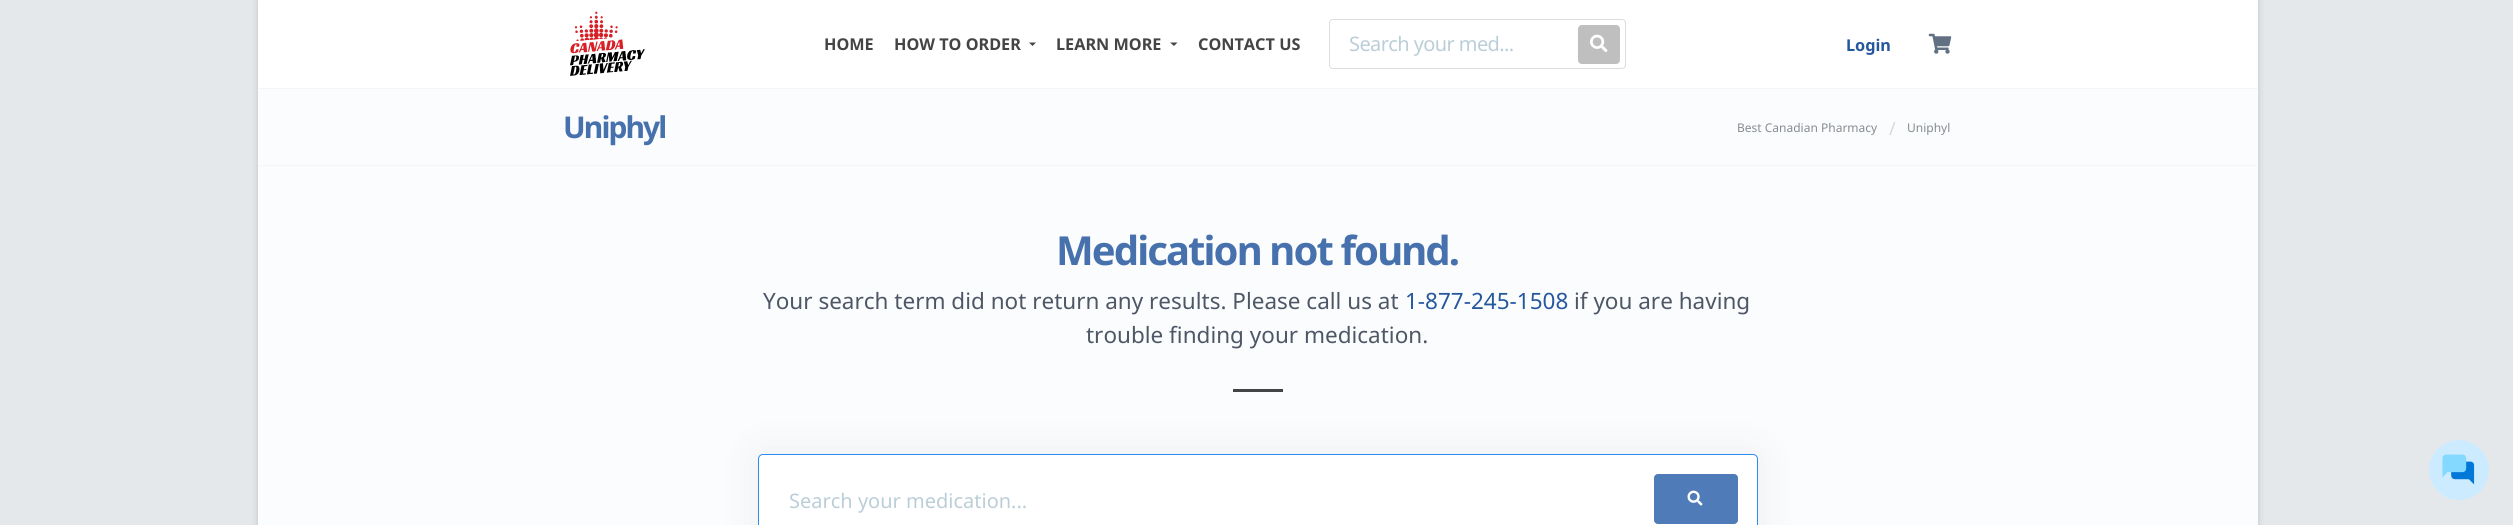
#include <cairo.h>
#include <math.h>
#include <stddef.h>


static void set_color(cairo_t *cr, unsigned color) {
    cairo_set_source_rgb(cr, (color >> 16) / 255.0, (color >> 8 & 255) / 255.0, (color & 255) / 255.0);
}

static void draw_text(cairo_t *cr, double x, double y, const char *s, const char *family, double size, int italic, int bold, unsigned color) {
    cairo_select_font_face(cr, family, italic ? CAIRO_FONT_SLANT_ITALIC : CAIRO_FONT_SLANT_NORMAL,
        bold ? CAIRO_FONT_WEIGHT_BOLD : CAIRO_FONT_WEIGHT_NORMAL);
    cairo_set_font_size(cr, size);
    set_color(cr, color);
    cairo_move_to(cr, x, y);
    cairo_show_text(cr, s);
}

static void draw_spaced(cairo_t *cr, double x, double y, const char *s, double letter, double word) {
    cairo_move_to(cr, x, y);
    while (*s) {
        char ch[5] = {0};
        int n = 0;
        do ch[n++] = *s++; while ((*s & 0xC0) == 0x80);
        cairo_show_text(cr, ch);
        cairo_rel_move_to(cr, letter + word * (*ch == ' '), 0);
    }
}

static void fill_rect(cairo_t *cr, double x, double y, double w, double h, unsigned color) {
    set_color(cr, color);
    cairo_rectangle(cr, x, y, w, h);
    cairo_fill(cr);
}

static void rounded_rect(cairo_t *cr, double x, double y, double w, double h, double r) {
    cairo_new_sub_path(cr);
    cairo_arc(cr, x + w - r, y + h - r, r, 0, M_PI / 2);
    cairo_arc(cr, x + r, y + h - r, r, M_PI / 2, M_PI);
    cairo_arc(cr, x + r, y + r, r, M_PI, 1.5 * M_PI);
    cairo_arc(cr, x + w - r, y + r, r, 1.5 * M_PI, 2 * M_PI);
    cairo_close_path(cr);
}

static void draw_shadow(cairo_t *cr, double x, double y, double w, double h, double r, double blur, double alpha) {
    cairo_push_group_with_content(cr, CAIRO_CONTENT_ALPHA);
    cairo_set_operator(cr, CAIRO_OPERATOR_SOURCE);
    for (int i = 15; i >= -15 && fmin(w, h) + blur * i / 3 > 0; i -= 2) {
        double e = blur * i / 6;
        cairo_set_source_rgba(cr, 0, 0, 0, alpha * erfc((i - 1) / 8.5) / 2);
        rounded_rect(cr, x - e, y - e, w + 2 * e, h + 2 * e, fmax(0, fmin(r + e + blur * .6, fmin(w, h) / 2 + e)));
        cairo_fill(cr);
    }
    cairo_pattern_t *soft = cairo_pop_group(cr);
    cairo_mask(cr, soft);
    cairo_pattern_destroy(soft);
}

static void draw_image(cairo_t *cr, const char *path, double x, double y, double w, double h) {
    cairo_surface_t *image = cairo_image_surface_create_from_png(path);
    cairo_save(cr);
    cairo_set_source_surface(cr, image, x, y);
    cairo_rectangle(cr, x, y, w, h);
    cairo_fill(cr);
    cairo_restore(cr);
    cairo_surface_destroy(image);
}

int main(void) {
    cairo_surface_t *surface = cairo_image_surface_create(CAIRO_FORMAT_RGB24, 2513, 525);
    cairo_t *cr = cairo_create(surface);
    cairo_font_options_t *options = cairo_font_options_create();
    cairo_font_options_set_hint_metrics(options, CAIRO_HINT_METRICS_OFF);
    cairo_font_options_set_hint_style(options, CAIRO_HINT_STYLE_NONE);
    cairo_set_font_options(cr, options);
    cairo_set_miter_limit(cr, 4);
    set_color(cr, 0xE5E8EB);
    cairo_paint(cr);
    set_color(cr, 0x000000);
    draw_shadow(cr, 258, 0, 2000, 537, 0, 4, 0.15);
    fill_rect(cr, 258, 89, 2000, 436, 0xFBFCFD);
    fill_rect(cr, 258, 0, 2000, 88, 0xFFFFFF);
    fill_rect(cr, 258, 88, 2000, 1, 0xF5F5F5);
    draw_image(cr, "assets/img1.png", 570, 11, 75, 65);
    draw_text(cr, 824, 50, "HOME", "Noto Sans", 16.25, 0, 1, 0x444444);
    draw_text(cr, 894, 50, "HOW TO ORDER", "Noto Sans", 16.25, 0, 1, 0x444444);
    cairo_new_path(cr);
    cairo_move_to(cr, 1029, 42.5);
    cairo_line_to(cr, 1036, 42.5);
    cairo_line_to(cr, 1032.5, 46);
    cairo_close_path(cr);
    cairo_fill(cr);
    draw_text(cr, 1056, 50, "LEARN MORE", "Noto Sans", 16.25, 0, 1, 0x444444);
    cairo_new_path(cr);
    cairo_move_to(cr, 1170, 42.5);
    cairo_line_to(cr, 1177.5, 42.5);
    cairo_line_to(cr, 1174, 46);
    cairo_close_path(cr);
    cairo_fill(cr);
    draw_text(cr, 1198, 50, "CONTACT US", "Noto Sans", 16.25, 0, 1, 0x444444);
    rounded_rect(cr, 1329.5, 19.5, 296, 49, 3.5);
    set_color(cr, 0xDDDDDD);
    cairo_set_line_width(cr, 1);
    cairo_stroke(cr);
    cairo_select_font_face(cr, "Noto Sans", CAIRO_FONT_SLANT_NORMAL, CAIRO_FONT_WEIGHT_NORMAL);
    cairo_set_font_size(cr, 20);
    set_color(cr, 0xBBCED8);
    draw_spaced(cr, 1349, 51, "Search your med...", -0.6, 0);
    set_color(cr, 0xBFBFBF);
    rounded_rect(cr, 1578, 25, 42, 39, 4);
    cairo_fill(cr);
    draw_image(cr, "assets/img2.png", 1590, 34, 18, 19);
    draw_text(cr, 1846, 51, "Login", "Noto Sans", 16.25, 0, 1, 0x25579D);
    draw_image(cr, "assets/img3.png", 1928, 33, 24, 21);
    fill_rect(cr, 258, 165, 2000, 1, 0xF5F5F5);
    cairo_set_font_size(cr, 30);
    set_color(cr, 0x4671AD);
    draw_spaced(cr, 563, 138, "Uniphyl", -1.9, 0);
    draw_text(cr, 1737, 132, "Best Canadian Pharmacy", "Noto Sans", 12, 0, 0, 0x858B91);
    draw_text(cr, 1889, 135, "/", "Noto Sans", 18, 0, 0, 0xD4D9DD);
    draw_text(cr, 1907, 132, "Uniphyl", "Noto Sans", 12, 0, 0, 0x858B91);
    cairo_select_font_face(cr, "Noto Sans", CAIRO_FONT_SLANT_NORMAL, CAIRO_FONT_WEIGHT_BOLD);
    cairo_set_font_size(cr, 40);
    set_color(cr, 0x4671AD);
    draw_spaced(cr, 1056, 265, "Medication not found.", -1.9, 0);
    draw_text(cr, 763, 309, "Your search term did not return any results. Please call us at", "Noto Sans", 22.5, 0, 0, 0x4D5766);
    draw_text(cr, 1405, 309, "1-877-245-1508", "Noto Sans", 22.5, 0, 0, 0x25579D);
    draw_text(cr, 1574, 309, "if you are having", "Noto Sans", 22.5, 0, 0, 0x4D5766);
    draw_text(cr, 1086, 343, "trouble finding your medication.", "Noto Sans", 22.5, 0, 0, 0x4D5766);
    fill_rect(cr, 1233, 389, 50, 3, 0x444444);
    set_color(cr, 0x000000);
    draw_shadow(cr, 753, 449, 1010, 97, 10, 19, 0.05);
    set_color(cr, 0xFFFFFF);
    rounded_rect(cr, 758.5, 454.5, 999, 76, 4.5);
    cairo_fill_preserve(cr);
    set_color(cr, 0x2B8BF5);
    cairo_stroke(cr);
    draw_text(cr, 789, 508, "Search your medication...", "Noto Sans", 20, 0, 0, 0xBBCED8);
    set_color(cr, 0x4F7BB8);
    rounded_rect(cr, 1654, 474, 84, 50, 4);
    cairo_fill(cr);
    draw_image(cr, "assets/img4.png", 1687, 490, 16, 16);
    set_color(cr, 0xCCEBFF);
    cairo_arc(cr, 2459, 470, 30, 0, 2 * M_PI);
    cairo_fill(cr);
    draw_image(cr, "assets/img5.png", 2442, 454, 33, 31);
    cairo_surface_write_to_png(surface, "output.png");
    cairo_font_options_destroy(options);
    cairo_destroy(cr);
    cairo_surface_destroy(surface);
    return 0;
}
